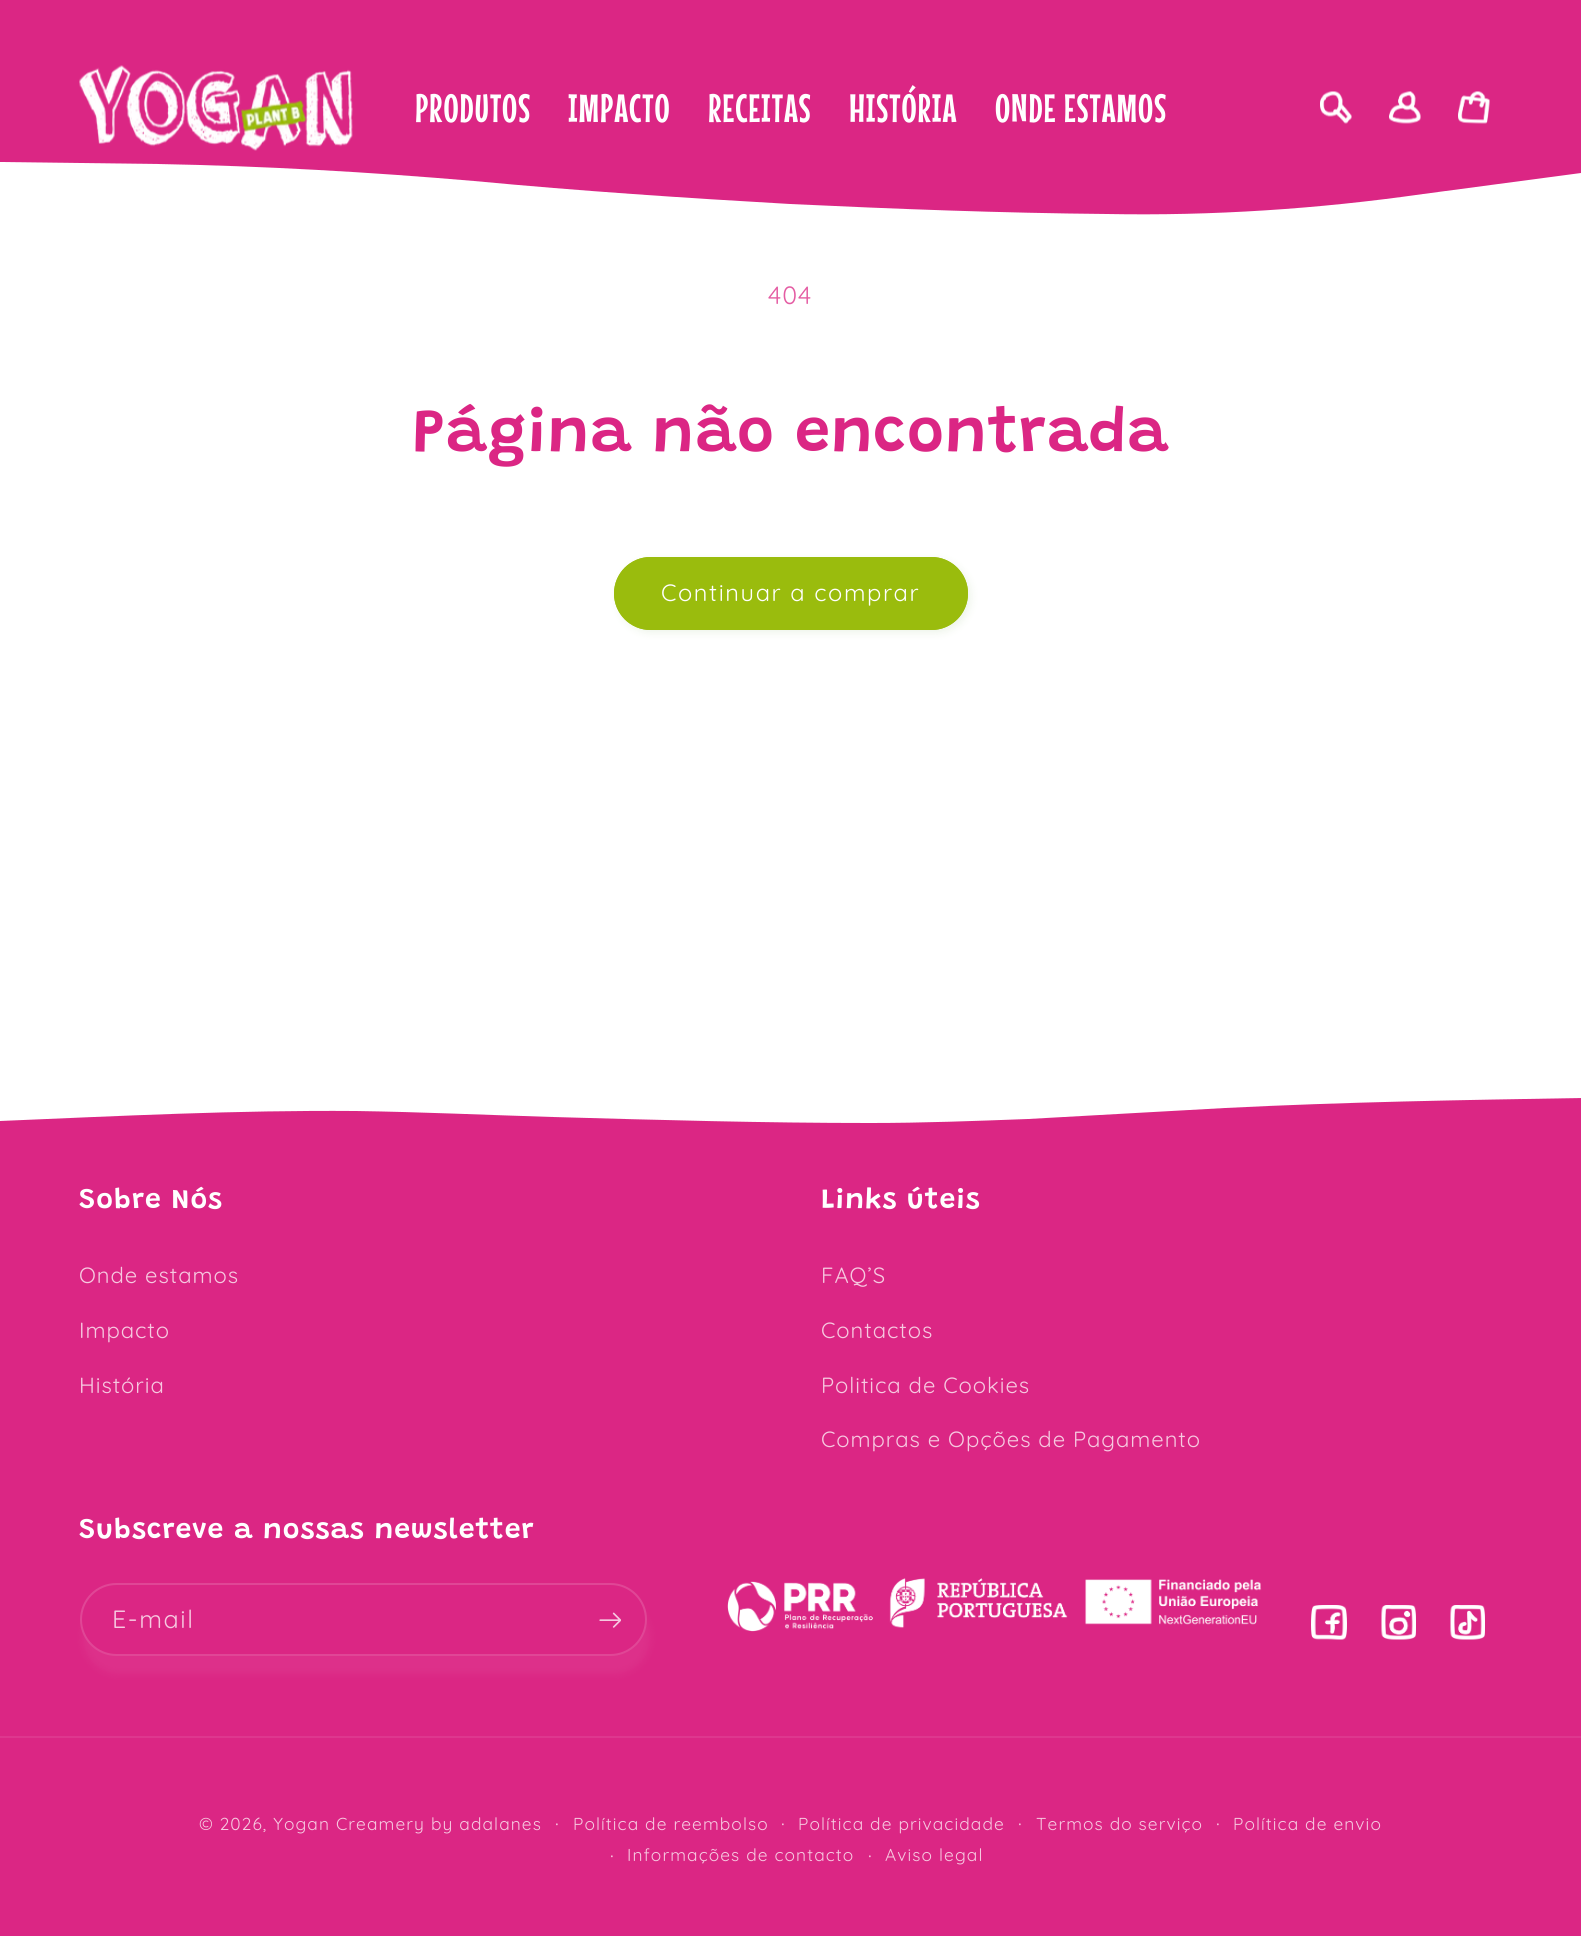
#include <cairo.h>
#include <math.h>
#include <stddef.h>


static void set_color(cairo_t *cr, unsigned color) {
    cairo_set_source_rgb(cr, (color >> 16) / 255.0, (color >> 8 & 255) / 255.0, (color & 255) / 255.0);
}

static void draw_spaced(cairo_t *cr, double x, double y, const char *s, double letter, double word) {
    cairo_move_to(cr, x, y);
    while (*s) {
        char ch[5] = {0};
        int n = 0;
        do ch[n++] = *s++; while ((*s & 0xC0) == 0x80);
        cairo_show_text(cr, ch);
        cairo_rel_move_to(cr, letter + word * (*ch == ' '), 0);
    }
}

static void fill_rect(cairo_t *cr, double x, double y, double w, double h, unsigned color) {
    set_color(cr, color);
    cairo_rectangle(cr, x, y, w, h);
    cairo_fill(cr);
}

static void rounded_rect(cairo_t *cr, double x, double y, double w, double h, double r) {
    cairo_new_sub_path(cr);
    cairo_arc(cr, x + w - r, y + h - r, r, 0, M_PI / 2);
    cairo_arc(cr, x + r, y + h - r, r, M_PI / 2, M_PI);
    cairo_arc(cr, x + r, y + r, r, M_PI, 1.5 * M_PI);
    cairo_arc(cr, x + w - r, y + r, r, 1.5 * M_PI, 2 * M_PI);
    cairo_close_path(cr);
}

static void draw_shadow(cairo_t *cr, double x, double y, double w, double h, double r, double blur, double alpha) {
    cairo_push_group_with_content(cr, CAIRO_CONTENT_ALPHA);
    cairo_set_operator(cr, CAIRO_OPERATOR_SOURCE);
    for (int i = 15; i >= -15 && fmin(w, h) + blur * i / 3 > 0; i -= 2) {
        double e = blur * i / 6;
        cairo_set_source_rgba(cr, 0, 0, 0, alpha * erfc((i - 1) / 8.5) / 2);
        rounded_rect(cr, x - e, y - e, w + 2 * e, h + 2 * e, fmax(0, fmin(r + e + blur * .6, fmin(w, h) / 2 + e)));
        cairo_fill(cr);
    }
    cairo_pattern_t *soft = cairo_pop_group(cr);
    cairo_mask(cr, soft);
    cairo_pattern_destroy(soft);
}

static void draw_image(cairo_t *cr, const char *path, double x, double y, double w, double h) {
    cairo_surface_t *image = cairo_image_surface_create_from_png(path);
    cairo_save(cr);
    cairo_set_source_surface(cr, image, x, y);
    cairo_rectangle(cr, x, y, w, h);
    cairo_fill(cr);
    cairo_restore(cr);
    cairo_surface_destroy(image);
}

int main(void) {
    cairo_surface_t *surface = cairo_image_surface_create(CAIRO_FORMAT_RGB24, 1581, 1936);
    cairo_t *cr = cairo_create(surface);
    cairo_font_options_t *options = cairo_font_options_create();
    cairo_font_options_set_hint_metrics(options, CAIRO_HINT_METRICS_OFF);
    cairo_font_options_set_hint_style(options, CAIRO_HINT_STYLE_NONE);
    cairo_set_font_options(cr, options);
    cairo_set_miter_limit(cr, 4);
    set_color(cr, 0xFFFFFF);
    cairo_paint(cr);
    fill_rect(cr, 0, 0, 1581, 154, 0xDB2684);
    draw_image(cr, "assets/img1.png", 79, 65, 274, 86);
    cairo_select_font_face(cr, "Mouse Memoirs", CAIRO_FONT_SLANT_NORMAL, CAIRO_FONT_WEIGHT_NORMAL);
    cairo_set_font_size(cr, 39.5);
    set_color(cr, 0xFFFFFF);
    draw_spaced(cr, 415, 122, "PRODUTOS", 0.95, 0);
    draw_spaced(cr, 568, 122, "IMPACTO", 0.95, 0);
    draw_spaced(cr, 708, 122, "RECEITAS", 0.95, 0);
    draw_spaced(cr, 849, 122, "HISTÓRIA", 0.95, 0);
    draw_spaced(cr, 995, 122, "ONDE ESTAMOS", 0.95, 0);
    draw_image(cr, "assets/img2.png", 1320, 91, 32, 33);
    draw_image(cr, "assets/img3.png", 1389, 91, 32, 33);
    draw_image(cr, "assets/img4.png", 1458, 91, 32, 33);
    set_color(cr, 0xDB2684);
    cairo_new_path(cr);
    cairo_move_to(cr, 0, 154);
    cairo_line_to(cr, 0, 162);
    cairo_line_to(cr, 158, 164);
    cairo_curve_to(cr, 264, 166, 369, 172, 474, 181);
    cairo_curve_to(cr, 580, 191, 685, 198, 790, 204);
    cairo_curve_to(cr, 896, 209, 1001, 213, 1107, 214);
    cairo_curve_to(cr, 1212, 216, 1318, 209, 1423, 194);
    cairo_line_to(cr, 1581, 173);
    cairo_line_to(cr, 1581, 154);
    cairo_close_path(cr);
    cairo_fill(cr);
    cairo_select_font_face(cr, "Quicksand", CAIRO_FONT_SLANT_NORMAL, CAIRO_FONT_WEIGHT_NORMAL);
    cairo_set_font_size(cr, 25);
    set_color(cr, 0xE45CA3);
    draw_spaced(cr, 768, 304, "404", 0.95, 0);
    cairo_select_font_face(cr, "Grandstander SemiBold", CAIRO_FONT_SLANT_NORMAL, CAIRO_FONT_WEIGHT_NORMAL);
    cairo_set_font_size(cr, 63);
    set_color(cr, 0xDB2684);
    draw_spaced(cr, 413, 451, "Página não encontrada", 0.95, 0);
    set_color(cr, 0x54962A);
    draw_shadow(cr, 617, 560, 354, 73, 36.5, 4, 0.1);
    set_color(cr, 0x9ABC0D);
    rounded_rect(cr, 614, 557, 354, 73, 36.5);
    cairo_fill(cr);
    rounded_rect(cr, 615, 558, 352, 71, 35.5);
    cairo_stroke(cr);
    cairo_select_font_face(cr, "Quicksand", CAIRO_FONT_SLANT_NORMAL, CAIRO_FONT_WEIGHT_NORMAL);
    cairo_set_font_size(cr, 23.6);
    set_color(cr, 0xFFFFFF);
    draw_spaced(cr, 661, 601, "Continuar a comprar", 1.6, 0);
    set_color(cr, 0xDB2684);
    cairo_new_path(cr);
    cairo_move_to(cr, 0, 1161);
    cairo_line_to(cr, 0, 1121);
    cairo_curve_to(cr, 119, 1116, 237, 1110, 356, 1111);
    cairo_curve_to(cr, 422, 1112, 487, 1115, 553, 1117);
    cairo_curve_to(cr, 659, 1120, 764, 1123, 870, 1123);
    cairo_curve_to(cr, 922, 1123, 975, 1121, 1028, 1119);
    cairo_line_to(cr, 1225, 1108);
    cairo_curve_to(cr, 1344, 1102, 1462, 1100, 1581, 1098);
    cairo_line_to(cr, 1581, 1161);
    cairo_close_path(cr);
    cairo_fill(cr);
    fill_rect(cr, 0, 1161, 1581, 775, 0xDB2684);
    cairo_select_font_face(cr, "Grandstander SemiBold", CAIRO_FONT_SLANT_NORMAL, CAIRO_FONT_WEIGHT_NORMAL);
    cairo_set_font_size(cr, 28.4);
    set_color(cr, 0xFFFFFF);
    draw_spaced(cr, 79, 1208, "Sobre Nós", 0.95, 0);
    cairo_select_font_face(cr, "Quicksand", CAIRO_FONT_SLANT_NORMAL, CAIRO_FONT_WEIGHT_NORMAL);
    cairo_set_font_size(cr, 22);
    set_color(cr, 0xF6C9E0);
    draw_spaced(cr, 79, 1283, "Onde estamos", 0.95, 0);
    draw_spaced(cr, 79, 1338, "Impacto", 0.95, 0);
    draw_spaced(cr, 79, 1393, "História", 0.95, 0);
    cairo_select_font_face(cr, "Grandstander SemiBold", CAIRO_FONT_SLANT_NORMAL, CAIRO_FONT_WEIGHT_NORMAL);
    cairo_set_font_size(cr, 28.4);
    set_color(cr, 0xFFFFFF);
    draw_spaced(cr, 821, 1208, "Links úteis", 0.95, 0);
    cairo_select_font_face(cr, "Quicksand", CAIRO_FONT_SLANT_NORMAL, CAIRO_FONT_WEIGHT_NORMAL);
    cairo_set_font_size(cr, 22);
    set_color(cr, 0xF6C9E0);
    draw_spaced(cr, 821, 1283, "FAQ’S", 0.95, 0);
    draw_spaced(cr, 821, 1338, "Contactos", 0.95, 0);
    draw_spaced(cr, 821, 1393, "Politica de Cookies", 0.95, 0);
    draw_spaced(cr, 821, 1447, "Compras e Opções de Pagamento", 0.95, 0);
    cairo_select_font_face(cr, "Grandstander SemiBold", CAIRO_FONT_SLANT_NORMAL, CAIRO_FONT_WEIGHT_NORMAL);
    cairo_set_font_size(cr, 28.4);
    set_color(cr, 0xFFFFFF);
    draw_spaced(cr, 79, 1538, "Subscreve a nossas newsletter", 0.95, 0);
    cairo_save(cr);
    cairo_set_fill_rule(cr, CAIRO_FILL_RULE_EVEN_ODD);
    cairo_new_path(cr);
    cairo_move_to(cr, 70, 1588);
    cairo_line_to(cr, 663, 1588);
    cairo_line_to(cr, 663, 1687);
    cairo_line_to(cr, 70, 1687);
    cairo_close_path(cr);
    cairo_move_to(cr, 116.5, 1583);
    cairo_line_to(cr, 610.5, 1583);
    cairo_curve_to(cr, 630.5, 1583, 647, 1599.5, 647, 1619.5);
    cairo_curve_to(cr, 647, 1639.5, 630.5, 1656, 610.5, 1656);
    cairo_line_to(cr, 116.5, 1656);
    cairo_curve_to(cr, 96.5, 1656, 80, 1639.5, 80, 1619.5);
    cairo_curve_to(cr, 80, 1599.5, 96.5, 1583, 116.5, 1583);
    cairo_close_path(cr);
    cairo_clip(cr);
    set_color(cr, 0xFFFFFF);
    draw_shadow(cr, 83, 1601, 567, 73, 36.5, 4, 0.05);
    cairo_restore(cr);
    rounded_rect(cr, 81, 1584, 565, 71, 35.5);
    cairo_set_source_rgba(cr, 1, 1, 1, 0.15);
    cairo_stroke(cr);
    cairo_select_font_face(cr, "Quicksand", CAIRO_FONT_SLANT_NORMAL, CAIRO_FONT_WEIGHT_NORMAL);
    cairo_set_font_size(cr, 25);
    set_color(cr, 0xF6C9E0);
    draw_spaced(cr, 112, 1628, "E-mail", 1.6, 0);
    draw_image(cr, "assets/img5.png", 599, 1612, 22, 16);
    draw_image(cr, "assets/img6.png", 727, 1578, 535, 54);
    draw_image(cr, "assets/img7.png", 1311, 1605, 36, 35);
    draw_image(cr, "assets/img8.png", 1381, 1605, 35, 35);
    draw_image(cr, "assets/img9.png", 1450, 1605, 35, 35);
    fill_rect(cr, 0, 1736, 1581, 2, 0xDE378E);
    cairo_set_font_size(cr, 17.3);
    set_color(cr, 0xF6C9E0);
    draw_spaced(cr, 199, 1830, "© 2026, Yogan Creamery", 1.1, 0);
    draw_spaced(cr, 431, 1830, "by adalanes", 1.1, 0);
    cairo_set_font_size(cr, 19);
    draw_spaced(cr, 555, 1830, "·", 1.1, 0);
    cairo_set_font_size(cr, 17.3);
    draw_spaced(cr, 573, 1830, "Política de reembolso", 1.1, 0);
    cairo_set_font_size(cr, 19);
    draw_spaced(cr, 781, 1830, "·", 1.1, 0);
    cairo_set_font_size(cr, 17.3);
    draw_spaced(cr, 798, 1830, "Política de privacidade", 1.1, 0);
    cairo_set_font_size(cr, 19);
    draw_spaced(cr, 1018, 1830, "·", 1.1, 0);
    cairo_set_font_size(cr, 17.3);
    draw_spaced(cr, 1036, 1830, "Termos do serviço", 1.1, 0);
    cairo_set_font_size(cr, 19);
    draw_spaced(cr, 1216, 1830, "·", 1.1, 0);
    cairo_set_font_size(cr, 17.3);
    draw_spaced(cr, 1233, 1830, "Política de envio", 1.1, 0);
    cairo_set_font_size(cr, 19);
    draw_spaced(cr, 610, 1862, "·", 1.1, 0);
    cairo_set_font_size(cr, 17.3);
    draw_spaced(cr, 627, 1861, "Informações de contacto", 1.1, 0);
    cairo_set_font_size(cr, 19);
    draw_spaced(cr, 868, 1862, "·", 1.1, 0);
    cairo_set_font_size(cr, 17.3);
    draw_spaced(cr, 885, 1861, "Aviso legal", 1.1, 0);
    cairo_surface_write_to_png(surface, "output.png");
    cairo_font_options_destroy(options);
    cairo_destroy(cr);
    cairo_surface_destroy(surface);
    return 0;
}
